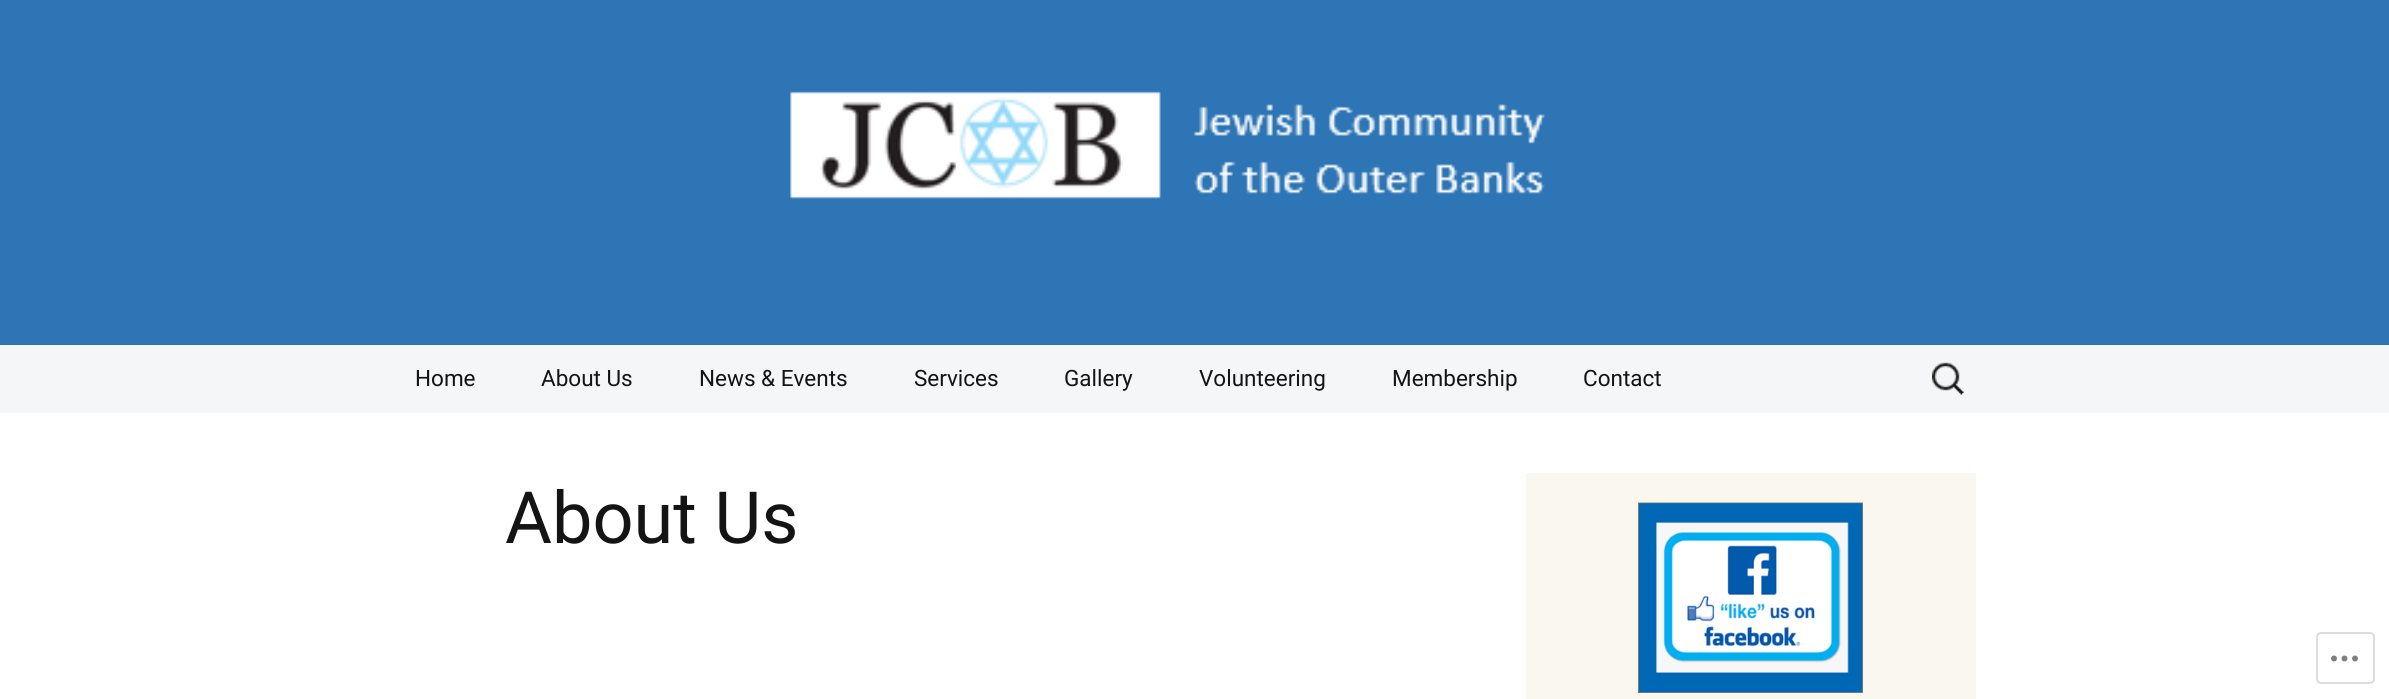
#include <cairo.h>
#include <math.h>
#include <stddef.h>


static void set_color(cairo_t *cr, unsigned color) {
    cairo_set_source_rgb(cr, (color >> 16) / 255.0, (color >> 8 & 255) / 255.0, (color & 255) / 255.0);
}

static void draw_text(cairo_t *cr, double x, double y, const char *s, const char *family, double size, int italic, int bold, unsigned color) {
    cairo_select_font_face(cr, family, italic ? CAIRO_FONT_SLANT_ITALIC : CAIRO_FONT_SLANT_NORMAL,
        bold ? CAIRO_FONT_WEIGHT_BOLD : CAIRO_FONT_WEIGHT_NORMAL);
    cairo_set_font_size(cr, size);
    set_color(cr, color);
    cairo_move_to(cr, x, y);
    cairo_show_text(cr, s);
}

static void fill_rect(cairo_t *cr, double x, double y, double w, double h, unsigned color) {
    set_color(cr, color);
    cairo_rectangle(cr, x, y, w, h);
    cairo_fill(cr);
}

static void rounded_rect(cairo_t *cr, double x, double y, double w, double h, double r) {
    cairo_new_sub_path(cr);
    cairo_arc(cr, x + w - r, y + h - r, r, 0, M_PI / 2);
    cairo_arc(cr, x + r, y + h - r, r, M_PI / 2, M_PI);
    cairo_arc(cr, x + r, y + r, r, M_PI, 1.5 * M_PI);
    cairo_arc(cr, x + w - r, y + r, r, 1.5 * M_PI, 2 * M_PI);
    cairo_close_path(cr);
}

static void draw_image(cairo_t *cr, const char *path, double x, double y, double w, double h) {
    cairo_surface_t *image = cairo_image_surface_create_from_png(path);
    cairo_save(cr);
    cairo_set_source_surface(cr, image, x, y);
    cairo_rectangle(cr, x, y, w, h);
    cairo_fill(cr);
    cairo_restore(cr);
    cairo_surface_destroy(image);
}

int main(void) {
    cairo_surface_t *surface = cairo_image_surface_create(CAIRO_FORMAT_RGB24, 2389, 699);
    cairo_t *cr = cairo_create(surface);
    cairo_font_options_t *options = cairo_font_options_create();
    cairo_font_options_set_hint_metrics(options, CAIRO_HINT_METRICS_OFF);
    cairo_font_options_set_hint_style(options, CAIRO_HINT_STYLE_NONE);
    cairo_set_font_options(cr, options);
    cairo_set_miter_limit(cr, 4);
    set_color(cr, 0xFFFFFF);
    cairo_paint(cr);
    draw_image(cr, "assets/img1.png", 0, 0, 2389, 345);
    fill_rect(cr, 0, 345, 2389, 68, 0xF4F6F8);
    draw_text(cr, 415, 386, "Home", "Roboto", 22.5, 0, 0, 0x141414);
    draw_text(cr, 541, 386, "About Us", "Roboto", 22.5, 0, 0, 0x141414);
    draw_text(cr, 699, 386, "News & Events", "Roboto", 22.5, 0, 0, 0x141414);
    draw_text(cr, 914, 386, "Services", "Roboto", 22.5, 0, 0, 0x141414);
    draw_text(cr, 1064, 386, "Gallery", "Roboto", 22.5, 0, 0, 0x141414);
    draw_text(cr, 1199, 386, "Volunteering", "Roboto", 22.5, 0, 0, 0x141414);
    draw_text(cr, 1392, 386, "Membership", "Roboto", 22.5, 0, 0, 0x141414);
    draw_text(cr, 1583, 386, "Contact", "Roboto", 22.5, 0, 0, 0x141414);
    draw_image(cr, "assets/img2.png", 1932, 362, 32, 33);
    draw_text(cr, 505, 543, "About Us", "Roboto", 72, 0, 0, 0x141414);
    fill_rect(cr, 1526, 473, 450, 226, 0xFAF8EE);
    draw_image(cr, "assets/img3.png", 1638, 502, 225, 191);
    rounded_rect(cr, 2317, 633, 57, 50, 4);
    set_color(cr, 0xDDDDDF);
    cairo_stroke(cr);
    draw_image(cr, "assets/img4.png", 2331, 655, 27, 7);
    cairo_surface_write_to_png(surface, "output.png");
    cairo_font_options_destroy(options);
    cairo_destroy(cr);
    cairo_surface_destroy(surface);
    return 0;
}
